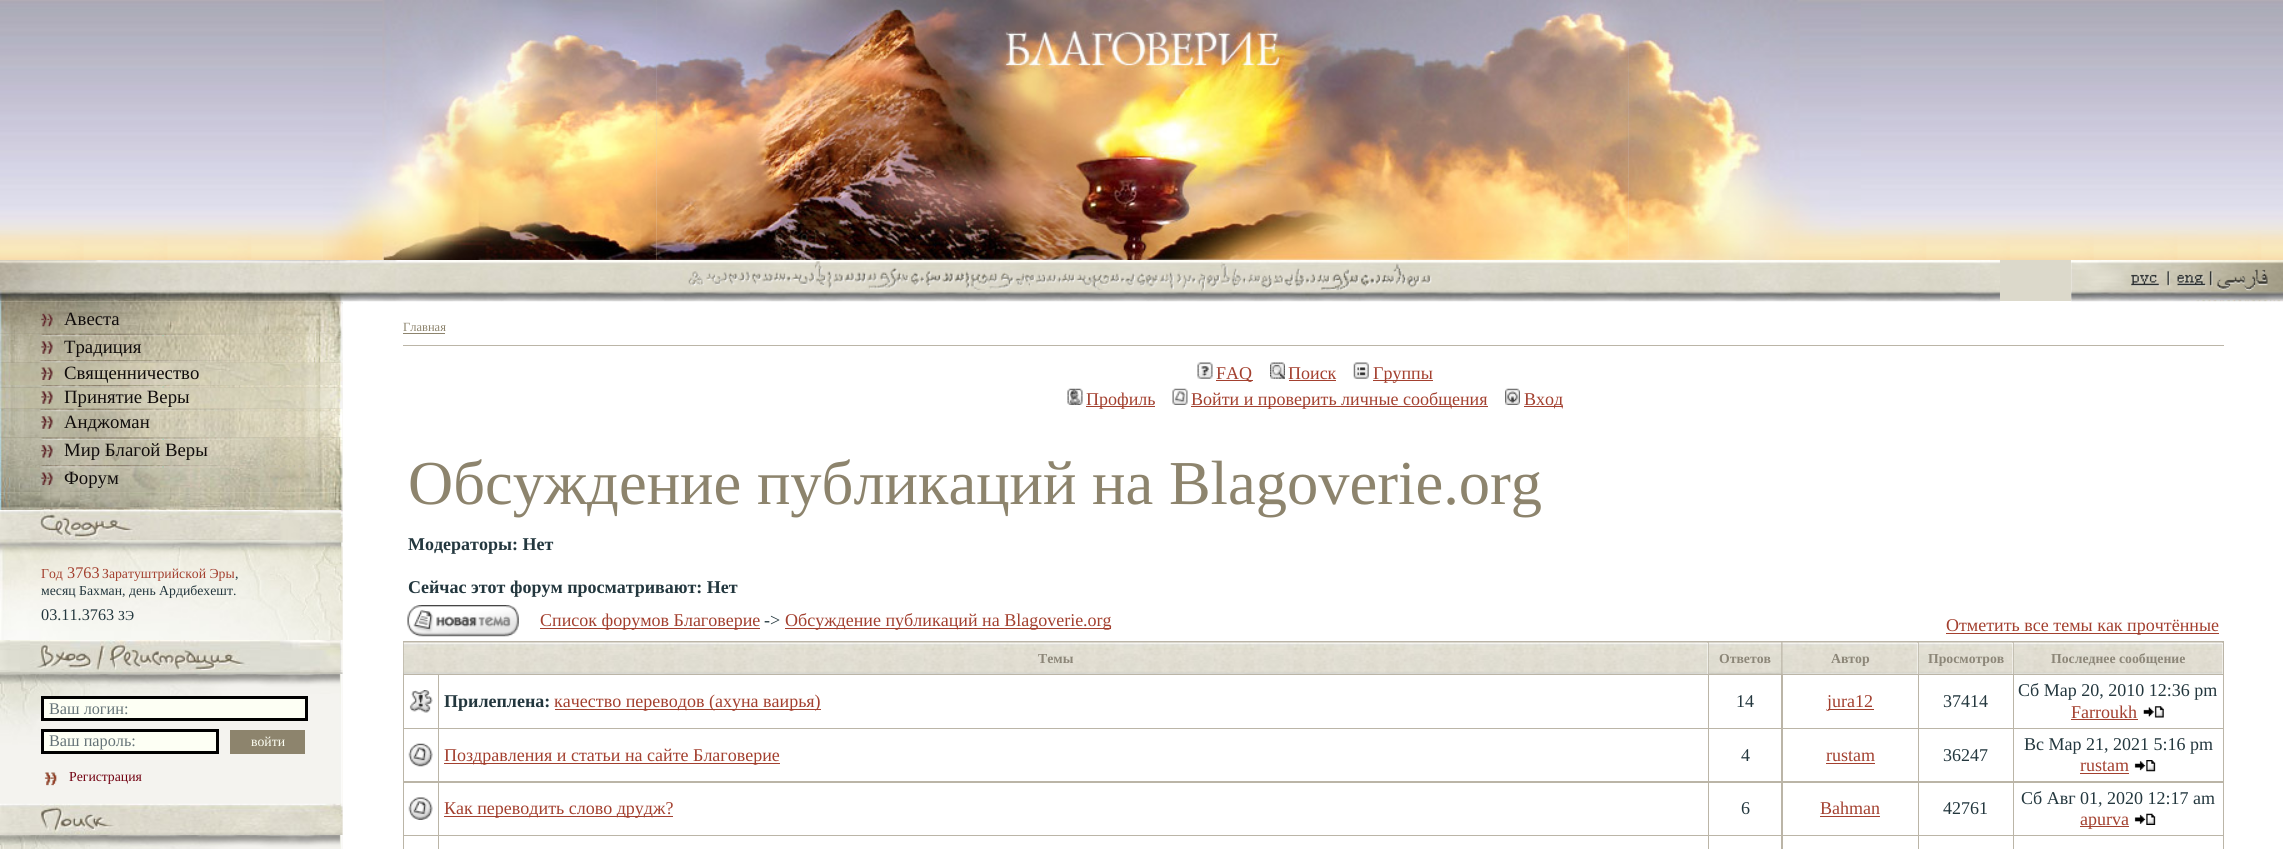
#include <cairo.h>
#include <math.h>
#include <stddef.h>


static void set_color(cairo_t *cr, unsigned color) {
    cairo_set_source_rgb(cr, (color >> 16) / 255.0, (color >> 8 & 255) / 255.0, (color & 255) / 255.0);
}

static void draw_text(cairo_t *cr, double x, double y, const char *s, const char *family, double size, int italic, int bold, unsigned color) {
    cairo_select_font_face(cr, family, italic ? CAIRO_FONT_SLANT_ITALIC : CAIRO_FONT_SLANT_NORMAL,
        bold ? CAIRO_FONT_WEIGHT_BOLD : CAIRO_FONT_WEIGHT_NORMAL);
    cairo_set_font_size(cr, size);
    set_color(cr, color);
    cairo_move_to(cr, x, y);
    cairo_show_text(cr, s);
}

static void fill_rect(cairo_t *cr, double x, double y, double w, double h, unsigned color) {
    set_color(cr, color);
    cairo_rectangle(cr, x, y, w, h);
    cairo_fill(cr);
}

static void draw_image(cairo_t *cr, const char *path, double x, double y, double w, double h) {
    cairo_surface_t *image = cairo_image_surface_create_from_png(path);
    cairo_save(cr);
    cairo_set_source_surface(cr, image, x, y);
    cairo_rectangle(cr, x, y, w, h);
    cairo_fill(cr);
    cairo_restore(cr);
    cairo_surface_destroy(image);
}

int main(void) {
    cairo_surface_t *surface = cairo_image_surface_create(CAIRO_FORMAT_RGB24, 2283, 849);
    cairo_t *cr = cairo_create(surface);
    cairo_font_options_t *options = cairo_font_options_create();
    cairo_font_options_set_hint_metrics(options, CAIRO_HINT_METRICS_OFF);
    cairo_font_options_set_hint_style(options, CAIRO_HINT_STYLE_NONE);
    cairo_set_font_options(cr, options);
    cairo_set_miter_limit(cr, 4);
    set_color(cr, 0xFFFFFF);
    cairo_paint(cr);
    draw_image(cr, "assets/img1.png", 0, 0, 2283, 260);
    draw_image(cr, "assets/img2.png", 323, 0, 334, 260);
    draw_image(cr, "assets/img4.png", 1628, 0, 233, 260);
    draw_image(cr, "assets/img3.png", 656, 0, 973, 260);
    fill_rect(cr, 2000, 260, 71, 41, 0xDCD9CB);
    draw_image(cr, "assets/img5.png", 0, 260, 2000, 42);
    draw_image(cr, "assets/img6.png", 688, 261, 744, 31);
    draw_image(cr, "assets/img7.png", 2071, 260, 212, 42);
    draw_image(cr, "assets/img8.png", 2131, 274, 29, 13);
    draw_image(cr, "assets/img9.png", 2167, 271, 4, 16);
    draw_image(cr, "assets/img10.png", 2177, 274, 30, 13);
    draw_image(cr, "assets/img11.png", 2209, 271, 4, 16);
    draw_image(cr, "assets/img12.png", 2217, 268, 51, 24);
    fill_rect(cr, 0, 301, 343, 548, 0xF4F3EF);
    draw_image(cr, "assets/img13.png", 0, 301, 343, 209);
    draw_image(cr, "assets/img14.png", 0, 301, 343, 33);
    draw_image(cr, "assets/img15.png", 41, 313, 12, 14);
    draw_text(cr, 64, 325, "Авеста", "Liberation Serif", 18.75, 0, 0, 0x100C0B);
    draw_image(cr, "assets/img16.png", 0, 333, 343, 4);
    draw_image(cr, "assets/img18.png", 0, 336, 343, 24);
    draw_image(cr, "assets/img17.png", 0, 333, 343, 4);
    draw_image(cr, "assets/img19.png", 41, 341, 12, 13);
    draw_text(cr, 64, 353, "Традиция", "Liberation Serif", 18.75, 0, 0, 0x100C0B);
    draw_image(cr, "assets/img20.png", 0, 360, 343, 3);
    draw_image(cr, "assets/img21.png", 0, 360, 343, 3);
    draw_image(cr, "assets/img22.png", 41, 367, 12, 13);
    draw_text(cr, 64, 379, "Священничество", "Liberation Serif", 18.75, 0, 0, 0x100C0B);
    draw_image(cr, "assets/img23.png", 0, 385, 343, 3);
    draw_image(cr, "assets/img24.png", 0, 385, 343, 3);
    draw_image(cr, "assets/img25.png", 41, 391, 12, 13);
    draw_text(cr, 64, 403, "Принятие Веры", "Liberation Serif", 18.75, 0, 0, 0x100C0B);
    draw_image(cr, "assets/img26.png", 0, 408, 343, 4);
    draw_image(cr, "assets/img28.png", 0, 411, 343, 27);
    draw_image(cr, "assets/img27.png", 0, 408, 343, 4);
    draw_image(cr, "assets/img29.png", 41, 416, 12, 13);
    draw_text(cr, 64, 428, "Анджоман", "Liberation Serif", 18.75, 0, 0, 0x100C0B);
    draw_image(cr, "assets/img30.png", 0, 437, 343, 3);
    draw_image(cr, "assets/img31.png", 0, 437, 343, 3);
    draw_image(cr, "assets/img32.png", 0, 440, 343, 25);
    draw_image(cr, "assets/img33.png", 41, 444, 12, 14);
    draw_text(cr, 64, 456, "Мир Благой Веры", "Liberation Serif", 18.75, 0, 0, 0x100C0B);
    draw_image(cr, "assets/img34.png", 0, 465, 343, 3);
    draw_image(cr, "assets/img36.png", 0, 467, 343, 26);
    draw_image(cr, "assets/img35.png", 0, 465, 343, 3);
    draw_image(cr, "assets/img37.png", 41, 472, 12, 13);
    draw_text(cr, 64, 484, "Форум", "Liberation Serif", 18.75, 0, 0, 0x100C0B);
    draw_image(cr, "assets/img38.png", 0, 492, 343, 17);
    draw_image(cr, "assets/img39.png", 0, 507, 343, 3);
    draw_image(cr, "assets/img40.png", 41, 507, 238, 3);
    draw_image(cr, "assets/img41.png", 0, 510, 343, 30);
    draw_image(cr, "assets/img42.png", 0, 540, 343, 100);
    draw_text(cr, 41, 578, "Год", "Liberation Serif", 13.75, 0, 0, 0xA3402F);
    draw_text(cr, 67, 578, "3763", "Liberation Serif", 16.25, 0, 0, 0xA3402F);
    draw_text(cr, 102, 578, "Заратуштрийской Эры", "Liberation Serif", 13.75, 0, 0, 0xA3402F);
    draw_text(cr, 235, 578, ",", "Liberation Serif", 13.75, 0, 0, 0x23373E);
    draw_text(cr, 41, 595, "месяц Бахман, день Ардибехешт.", "Liberation Serif", 13.75, 0, 0, 0x23373E);
    draw_text(cr, 41, 620, "03.11.3763", "Liberation Serif", 16.25, 0, 0, 0x23373E);
    draw_text(cr, 118, 620, "ЗЭ", "Liberation Serif", 13.75, 0, 0, 0x23373E);
    draw_image(cr, "assets/img44.png", 0, 673, 343, 131);
    draw_image(cr, "assets/img43.png", 0, 640, 343, 34);
    set_color(cr, 0xFDFFF4);
    cairo_rectangle(cr, 42.5, 697.5, 264, 22);
    cairo_fill_preserve(cr);
    set_color(cr, 0x000000);
    cairo_set_line_width(cr, 3);
    cairo_stroke(cr);
    draw_text(cr, 49, 714, "Ваш логин:", "Liberation Serif", 16.25, 0, 0, 0x657377);
    set_color(cr, 0xFDFFF4);
    cairo_rectangle(cr, 42.5, 730.5, 175, 22);
    cairo_fill_preserve(cr);
    set_color(cr, 0x000000);
    cairo_stroke(cr);
    draw_text(cr, 49, 746, "Ваш пароль:", "Liberation Serif", 16.25, 0, 0, 0x657377);
    fill_rect(cr, 230, 730, 75, 24, 0x8D846D);
    draw_text(cr, 251, 746, "войти", "Liberation Serif", 13.75, 0, 0, 0xFDFFF4);
    draw_image(cr, "assets/img45.png", 44, 772, 13, 14);
    draw_text(cr, 69, 781, "Регистрация", "Liberation Serif", 13.75, 0, 0, 0x710010);
    draw_image(cr, "assets/img46.png", 0, 803, 343, 32);
    draw_image(cr, "assets/img47.png", 0, 835, 343, 14);
    fill_rect(cr, 403, 345, 1821, 1, 0xBBB5A7);
    draw_text(cr, 403, 331, "Главная", "Liberation Serif", 12.5, 0, 0, 0x8D846D);
    fill_rect(cr, 403, 333, 42, 1, 0x8D846D);
    draw_image(cr, "assets/img48.png", 1197, 362, 16, 17);
    fill_rect(cr, 1216, 380, 37, 1, 0xA3402F);
    draw_text(cr, 1216, 379, "FAQ", "Liberation Serif", 18, 0, 0, 0xA3402F);
    draw_image(cr, "assets/img49.png", 1270, 362, 15, 17);
    draw_text(cr, 1288, 379, "Поиск", "Liberation Serif", 18, 0, 0, 0xA3402F);
    fill_rect(cr, 1289, 380, 47, 1, 0xA3402F);
    draw_image(cr, "assets/img50.png", 1353, 362, 16, 17);
    fill_rect(cr, 1373, 380, 60, 1, 0xA3402F);
    draw_text(cr, 1373, 379, "Группы", "Liberation Serif", 18, 0, 0, 0xA3402F);
    draw_image(cr, "assets/img51.png", 1067, 388, 16, 17);
    fill_rect(cr, 1086, 406, 69, 1, 0xA3402F);
    draw_text(cr, 1086, 405, "Профиль", "Liberation Serif", 18, 0, 0, 0xA3402F);
    draw_image(cr, "assets/img52.png", 1172, 388, 16, 17);
    fill_rect(cr, 1191, 406, 297, 1, 0xA3402F);
    draw_text(cr, 1191, 405, "Войти и проверить личные сообщения", "Liberation Serif", 18, 0, 0, 0xA3402F);
    draw_image(cr, "assets/img53.png", 1505, 388, 15, 17);
    fill_rect(cr, 1524, 406, 39, 1, 0xA3402F);
    draw_text(cr, 1524, 405, "Вход", "Liberation Serif", 18, 0, 0, 0xA3402F);
    draw_text(cr, 408, 504, "Обсуждение публикаций на Blagoverie.org", "Liberation Serif", 62.5, 0, 0, 0x8D846D);
    draw_text(cr, 408, 550, "Модераторы: Нет", "Liberation Serif", 18, 0, 1, 0x23373E);
    draw_text(cr, 408, 593, "Сейчас этот форум просматривают: Нет", "Liberation Serif", 18, 0, 1, 0x23373E);
    draw_image(cr, "assets/img54.png", 407, 605, 112, 32);
    fill_rect(cr, 540, 628, 220, 1, 0xA3402F);
    draw_text(cr, 540, 626, "Список форумов Благоверие", "Liberation Serif", 18, 0, 0, 0xA3402F);
    draw_text(cr, 764, 626, "->", "Liberation Serif", 18, 0, 0, 0x23373E);
    fill_rect(cr, 785, 628, 326, 1, 0xA3402F);
    draw_text(cr, 785, 626, "Обсуждение публикаций на Blagoverie.org", "Liberation Serif", 18, 0, 0, 0xA3402F);
    fill_rect(cr, 1946, 633, 273, 1, 0xA3402F);
    draw_text(cr, 1946, 631, "Отметить все темы как прочтённые", "Liberation Serif", 18, 0, 0, 0xA3402F);
    fill_rect(cr, 403, 641, 1821, 208, 0xBBB5A7);
    fill_rect(cr, 404, 643, 1304, 31, 0xFFFFFF);
    draw_image(cr, "assets/img55.png", 403, 642, 1305, 32);
    draw_text(cr, 1038, 663, "Темы", "Liberation Serif", 13.75, 0, 1, 0x8C8678);
    draw_image(cr, "assets/img56.png", 1708, 642, 74, 32);
    draw_text(cr, 1719, 663, "Ответов", "Liberation Serif", 13.75, 0, 1, 0x8C8678);
    fill_rect(cr, 1783, 643, 135, 31, 0xFFFFFF);
    draw_image(cr, "assets/img57.png", 1782, 642, 136, 32);
    draw_text(cr, 1831, 663, "Автор", "Liberation Serif", 13.75, 0, 1, 0x8C8678);
    fill_rect(cr, 1919, 643, 94, 31, 0xFFFFFF);
    draw_image(cr, "assets/img58.png", 1918, 642, 95, 32);
    draw_text(cr, 1928, 663, "Просмотров", "Liberation Serif", 13.75, 0, 1, 0x8C8678);
    fill_rect(cr, 2014, 643, 209, 31, 0xFFFFFF);
    draw_image(cr, "assets/img59.png", 2013, 642, 210, 32);
    draw_text(cr, 2051, 663, "Последнее сообщение", "Liberation Serif", 13.75, 0, 1, 0x8C8678);
    fill_rect(cr, 404, 675, 34, 53, 0xFFFFFF);
    draw_image(cr, "assets/img60.png", 409, 690, 24, 23);
    fill_rect(cr, 439, 675, 1269, 53, 0xFFFFFF);
    draw_text(cr, 444, 707, "Прилеплена:", "Liberation Serif", 18, 0, 1, 0x23373E);
    fill_rect(cr, 555, 709, 266, 1, 0xA3402F);
    draw_text(cr, 554, 707, "качество переводов (ахуна ваирья)", "Liberation Serif", 18, 0, 0, 0xA3402F);
    fill_rect(cr, 1709, 675, 72, 53, 0xFFFFFF);
    draw_text(cr, 1736, 707, "14", "Liberation Serif", 18, 0, 0, 0x23373E);
    fill_rect(cr, 1783, 675, 135, 53, 0xFFFFFF);
    fill_rect(cr, 1828, 709, 46, 1, 0xA3402F);
    draw_text(cr, 1827, 707, "jura12", "Liberation Serif", 18, 0, 0, 0xA3402F);
    fill_rect(cr, 1919, 675, 94, 53, 0xFFFFFF);
    draw_text(cr, 1943, 707, "37414", "Liberation Serif", 18, 0, 0, 0x23373E);
    fill_rect(cr, 2014, 675, 209, 53, 0xFFFFFF);
    draw_text(cr, 2018, 696, "Сб Мар 20, 2010 12:36 pm", "Liberation Serif", 18, 0, 0, 0x23373E);
    draw_text(cr, 2071, 718, "Farroukh", "Liberation Serif", 18, 0, 0, 0xA3402F);
    fill_rect(cr, 2071, 719, 67, 1, 0xA3402F);
    draw_image(cr, "assets/img61.png", 2143, 706, 21, 12);
    fill_rect(cr, 404, 729, 34, 52, 0xFFFFFF);
    draw_image(cr, "assets/img62.png", 408, 743, 25, 24);
    fill_rect(cr, 439, 729, 1269, 52, 0xFFFFFF);
    fill_rect(cr, 444, 763, 336, 1, 0xA3402F);
    draw_text(cr, 444, 761, "Поздравления и статьи на сайте Благоверие", "Liberation Serif", 18, 0, 0, 0xA3402F);
    fill_rect(cr, 1709, 729, 72, 52, 0xFFFFFF);
    draw_text(cr, 1741, 761, "4", "Liberation Serif", 18, 0, 0, 0x23373E);
    fill_rect(cr, 1783, 729, 135, 52, 0xFFFFFF);
    draw_text(cr, 1826, 761, "rustam", "Liberation Serif", 18, 0, 0, 0xA3402F);
    fill_rect(cr, 1826, 763, 49, 1, 0xA3402F);
    fill_rect(cr, 1919, 729, 94, 52, 0xFFFFFF);
    draw_text(cr, 1943, 761, "36247", "Liberation Serif", 18, 0, 0, 0x23373E);
    fill_rect(cr, 2014, 729, 209, 52, 0xFFFFFF);
    draw_text(cr, 2024, 750, "Вс Мар 21, 2021 5:16 pm", "Liberation Serif", 18, 0, 0, 0x23373E);
    draw_text(cr, 2080, 771, "rustam", "Liberation Serif", 18, 0, 0, 0xA3402F);
    fill_rect(cr, 2080, 773, 49, 1, 0xA3402F);
    draw_image(cr, "assets/img63.png", 2134, 760, 22, 12);
    fill_rect(cr, 404, 783, 34, 52, 0xFFFFFF);
    draw_image(cr, "assets/img64.png", 408, 797, 25, 23);
    fill_rect(cr, 439, 783, 1269, 52, 0xFFFFFF);
    fill_rect(cr, 444, 816, 229, 1, 0xA3402F);
    draw_text(cr, 444, 814, "Как переводить слово друдж?", "Liberation Serif", 18, 0, 0, 0xA3402F);
    fill_rect(cr, 1709, 783, 72, 52, 0xFFFFFF);
    draw_text(cr, 1741, 814, "6", "Liberation Serif", 18, 0, 0, 0x23373E);
    fill_rect(cr, 1783, 783, 135, 52, 0xFFFFFF);
    draw_text(cr, 1820, 814, "Bahman", "Liberation Serif", 18, 0, 0, 0xA3402F);
    fill_rect(cr, 1820, 816, 60, 1, 0xA3402F);
    fill_rect(cr, 1919, 783, 94, 52, 0xFFFFFF);
    draw_text(cr, 1943, 814, "42761", "Liberation Serif", 18, 0, 0, 0x23373E);
    fill_rect(cr, 2014, 783, 209, 52, 0xFFFFFF);
    draw_text(cr, 2021, 804, "Сб Авг 01, 2020 12:17 am", "Liberation Serif", 18, 0, 0, 0x23373E);
    fill_rect(cr, 2080, 826, 49, 1, 0xA3402F);
    draw_text(cr, 2080, 825, "apurva", "Liberation Serif", 18, 0, 0, 0xA3402F);
    draw_image(cr, "assets/img65.png", 2134, 813, 22, 12);
    fill_rect(cr, 404, 836, 34, 13, 0xFFFFFF);
    fill_rect(cr, 439, 836, 1269, 13, 0xFFFFFF);
    fill_rect(cr, 1709, 836, 72, 13, 0xFFFFFF);
    fill_rect(cr, 1783, 836, 135, 13, 0xFFFFFF);
    fill_rect(cr, 1919, 836, 94, 13, 0xFFFFFF);
    fill_rect(cr, 2014, 836, 209, 13, 0xFFFFFF);
    cairo_surface_write_to_png(surface, "output.png");
    cairo_font_options_destroy(options);
    cairo_destroy(cr);
    cairo_surface_destroy(surface);
    return 0;
}
